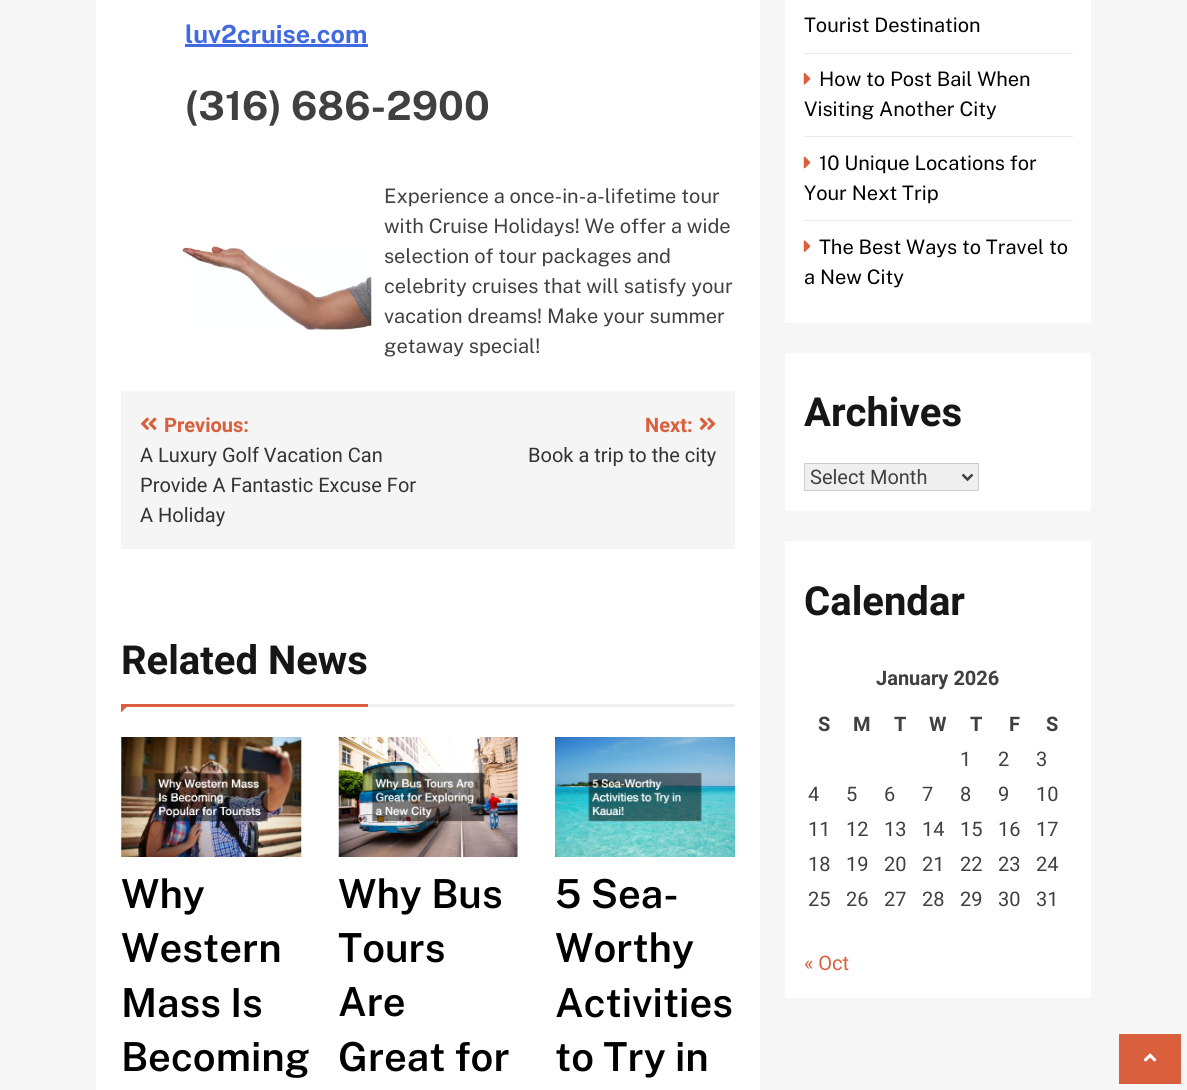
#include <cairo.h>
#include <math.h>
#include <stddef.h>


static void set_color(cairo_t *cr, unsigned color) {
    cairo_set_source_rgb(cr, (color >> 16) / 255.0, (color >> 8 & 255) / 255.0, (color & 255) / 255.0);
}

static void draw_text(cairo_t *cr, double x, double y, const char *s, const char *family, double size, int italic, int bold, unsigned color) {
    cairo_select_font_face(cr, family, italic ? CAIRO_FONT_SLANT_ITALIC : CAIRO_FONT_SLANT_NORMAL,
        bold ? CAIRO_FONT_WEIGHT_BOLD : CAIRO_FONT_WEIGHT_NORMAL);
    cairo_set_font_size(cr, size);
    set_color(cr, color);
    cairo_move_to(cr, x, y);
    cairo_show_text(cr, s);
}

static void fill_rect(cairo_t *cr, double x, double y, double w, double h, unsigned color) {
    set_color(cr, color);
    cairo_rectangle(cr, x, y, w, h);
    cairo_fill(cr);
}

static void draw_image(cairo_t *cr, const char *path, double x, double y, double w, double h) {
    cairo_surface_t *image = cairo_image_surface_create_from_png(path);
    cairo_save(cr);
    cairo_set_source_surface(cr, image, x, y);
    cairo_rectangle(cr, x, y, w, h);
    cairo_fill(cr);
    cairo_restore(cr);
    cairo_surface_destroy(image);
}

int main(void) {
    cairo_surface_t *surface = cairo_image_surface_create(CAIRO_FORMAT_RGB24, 1187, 1090);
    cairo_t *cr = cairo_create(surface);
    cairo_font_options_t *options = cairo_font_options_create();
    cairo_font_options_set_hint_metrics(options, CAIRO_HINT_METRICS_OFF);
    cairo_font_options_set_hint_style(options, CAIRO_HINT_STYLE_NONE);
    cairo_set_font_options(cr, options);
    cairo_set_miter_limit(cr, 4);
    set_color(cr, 0xF6F6F6);
    cairo_paint(cr);
    fill_rect(cr, 96, 0, 664, 1090, 0xFFFFFF);
    draw_text(cr, 185, 43, "luv2cruise.com", "Public Sans", 25, 0, 1, 0x4169E1);
    fill_rect(cr, 185, 44, 183, 3, 0x4169E1);
    draw_text(cr, 185, 120, "(316) 686-2900", "Public Sans", 40, 0, 1, 0x404040);
    draw_image(cr, "assets/img1.png", 182, 246, 190, 84);
    draw_text(cr, 384, 203, "Experience a once-in-a-lifetime tour", "Public Sans", 20, 0, 0, 0x404040);
    draw_text(cr, 384, 233, "with Cruise Holidays! We offer a wide", "Public Sans", 20, 0, 0, 0x404040);
    draw_text(cr, 384, 263, "selection of tour packages and", "Public Sans", 20, 0, 0, 0x404040);
    draw_text(cr, 384, 293, "celebrity cruises that will satisfy your", "Public Sans", 20, 0, 0, 0x404040);
    draw_text(cr, 384, 323, "vacation dreams! Make your summer", "Public Sans", 20, 0, 0, 0x404040);
    draw_text(cr, 384, 353, "getaway special!", "Public Sans", 20, 0, 0, 0x404040);
    fill_rect(cr, 121, 391, 614, 158, 0xF5F5F5);
    draw_image(cr, "assets/img2.png", 141, 417, 16, 13);
    draw_text(cr, 164, 432, "Previous:", "Heebo", 20, 0, 1, 0xD95F3D);
    draw_text(cr, 140, 462, "A Luxury Golf Vacation Can", "Heebo", 20, 0, 0, 0x333333);
    draw_text(cr, 140, 492, "Provide A Fantastic Excuse For", "Heebo", 20, 0, 0, 0x333333);
    draw_text(cr, 140, 522, "A Holiday", "Heebo", 20, 0, 0, 0x333333);
    draw_text(cr, 645, 432, "Next:", "Heebo", 20, 0, 1, 0xD95F3D);
    draw_image(cr, "assets/img3.png", 699, 417, 17, 13);
    draw_text(cr, 528, 462, "Book a trip to the city", "Heebo", 20, 0, 0, 0x333333);
    fill_rect(cr, 368, 704, 367, 3, 0xF0F0F0);
    fill_rect(cr, 121, 704, 247, 3, 0xD95F3D);
    draw_text(cr, 121, 674, "Related News", "Heebo", 40, 0, 1, 0x161616);
    set_color(cr, 0xD95F3D);
    cairo_new_path(cr);
    cairo_move_to(cr, 121, 706);
    cairo_line_to(cr, 127.5, 706);
    cairo_line_to(cr, 121, 712.5);
    cairo_close_path(cr);
    cairo_fill(cr);
    draw_image(cr, "assets/img4.png", 121, 737, 181, 120);
    draw_text(cr, 121, 908, "Why", "Public Sans SemiBold", 40, 0, 0, 0x000000);
    draw_text(cr, 121, 962, "Western", "Public Sans SemiBold", 40, 0, 0, 0x000000);
    draw_text(cr, 121, 1017, "Mass Is", "Public Sans SemiBold", 40, 0, 0, 0x000000);
    draw_text(cr, 121, 1071, "Becoming", "Public Sans SemiBold", 40, 0, 0, 0x000000);
    draw_image(cr, "assets/img5.png", 338, 737, 180, 120);
    draw_text(cr, 338, 908, "Why Bus", "Public Sans SemiBold", 40, 0, 0, 0x000000);
    draw_text(cr, 338, 962, "Tours", "Public Sans SemiBold", 40, 0, 0, 0x000000);
    draw_text(cr, 338, 1016, "Are", "Public Sans SemiBold", 40, 0, 0, 0x000000);
    draw_text(cr, 338, 1071, "Great for", "Public Sans SemiBold", 40, 0, 0, 0x000000);
    draw_image(cr, "assets/img6.png", 555, 737, 180, 120);
    draw_text(cr, 555, 908, "5 Sea-", "Public Sans SemiBold", 40, 0, 0, 0x000000);
    draw_text(cr, 555, 962, "Worthy", "Public Sans SemiBold", 40, 0, 0, 0x000000);
    draw_text(cr, 555, 1017, "Activities", "Public Sans SemiBold", 40, 0, 0, 0x000000);
    draw_text(cr, 555, 1071, "to Try in", "Public Sans SemiBold", 40, 0, 0, 0x000000);
    fill_rect(cr, 785, 0, 306, 323, 0xFFFFFF);
    fill_rect(cr, 804, 53, 269, 1, 0xEAEAEA);
    draw_text(cr, 804, 32, "Tourist Destination", "Public Sans", 20, 0, 0, 0x000000);
    fill_rect(cr, 804, 136, 269, 1, 0xEAEAEA);
    draw_image(cr, "assets/img7.png", 803, 72, 8, 13);
    draw_text(cr, 819, 86, "How to Post Bail When", "Public Sans", 20, 0, 0, 0x000000);
    draw_text(cr, 804, 116, "Visiting Another City", "Public Sans", 20, 0, 0, 0x000000);
    fill_rect(cr, 804, 220, 269, 1, 0xEAEAEA);
    draw_image(cr, "assets/img8.png", 803, 156, 8, 13);
    draw_text(cr, 819, 170, "10 Unique Locations for", "Public Sans", 20, 0, 0, 0x000000);
    draw_text(cr, 804, 200, "Your Next Trip", "Public Sans", 20, 0, 0, 0x000000);
    draw_image(cr, "assets/img9.png", 803, 240, 8, 12);
    draw_text(cr, 819, 254, "The Best Ways to Travel to", "Public Sans", 20, 0, 0, 0x000000);
    draw_text(cr, 804, 284, "a New City", "Public Sans", 20, 0, 0, 0x000000);
    fill_rect(cr, 785, 353, 306, 158, 0xFFFFFF);
    draw_text(cr, 804, 426, "Archives", "Heebo", 40, 0, 1, 0x161616);
    set_color(cr, 0xEFEFEF);
    cairo_rectangle(cr, 804.5, 463.5, 174, 27);
    cairo_fill_preserve(cr);
    set_color(cr, 0xCCCCCC);
    cairo_set_line_width(cr, 1);
    cairo_stroke(cr);
    cairo_new_path(cr);
    cairo_move_to(cr, 962.5, 474.5);
    cairo_line_to(cr, 967.5, 479.5);
    cairo_line_to(cr, 972.5, 474.5);
    set_color(cr, 0x404040);
    cairo_set_line_width(cr, 2.5);
    cairo_stroke(cr);
    draw_text(cr, 810, 484, "Select Month", "Roboto", 20, 0, 0, 0x404040);
    fill_rect(cr, 785, 541, 306, 457, 0xFFFFFF);
    draw_text(cr, 804, 615, "Calendar", "Heebo", 40, 0, 1, 0x161616);
    draw_text(cr, 876, 685, "January 2026", "Heebo", 20, 0, 1, 0x404040);
    draw_text(cr, 818, 731, "S", "Heebo", 20, 0, 1, 0x404040);
    draw_text(cr, 853, 731, "M", "Heebo", 20, 0, 1, 0x404040);
    draw_text(cr, 894, 731, "T", "Heebo", 20, 0, 1, 0x404040);
    draw_text(cr, 929, 731, "W", "Heebo", 20, 0, 1, 0x404040);
    draw_text(cr, 970, 731, "T", "Heebo", 20, 0, 1, 0x404040);
    draw_text(cr, 1009, 731, "F", "Heebo", 20, 0, 1, 0x404040);
    draw_text(cr, 1046, 731, "S", "Heebo", 20, 0, 1, 0x404040);
    draw_text(cr, 960, 766, "1", "Heebo", 20, 0, 0, 0x404040);
    draw_text(cr, 998, 766, "2", "Heebo", 20, 0, 0, 0x404040);
    draw_text(cr, 1036, 766, "3", "Heebo", 20, 0, 0, 0x404040);
    draw_text(cr, 808, 801, "4", "Heebo", 20, 0, 0, 0x404040);
    draw_text(cr, 846, 801, "5", "Heebo", 20, 0, 0, 0x404040);
    draw_text(cr, 884, 801, "6", "Heebo", 20, 0, 0, 0x404040);
    draw_text(cr, 922, 801, "7", "Heebo", 20, 0, 0, 0x404040);
    draw_text(cr, 960, 801, "8", "Heebo", 20, 0, 0, 0x404040);
    draw_text(cr, 998, 801, "9", "Heebo", 20, 0, 0, 0x404040);
    draw_text(cr, 1036, 801, "10", "Heebo", 20, 0, 0, 0x404040);
    draw_text(cr, 808, 836, "11", "Heebo", 20, 0, 0, 0x404040);
    draw_text(cr, 846, 836, "12", "Heebo", 20, 0, 0, 0x404040);
    draw_text(cr, 884, 836, "13", "Heebo", 20, 0, 0, 0x404040);
    draw_text(cr, 922, 836, "14", "Heebo", 20, 0, 0, 0x404040);
    draw_text(cr, 960, 836, "15", "Heebo", 20, 0, 0, 0x404040);
    draw_text(cr, 998, 836, "16", "Heebo", 20, 0, 0, 0x404040);
    draw_text(cr, 1036, 836, "17", "Heebo", 20, 0, 0, 0x404040);
    draw_text(cr, 808, 871, "18", "Heebo", 20, 0, 0, 0x404040);
    draw_text(cr, 846, 871, "19", "Heebo", 20, 0, 0, 0x404040);
    draw_text(cr, 884, 871, "20", "Heebo", 20, 0, 0, 0x404040);
    draw_text(cr, 922, 871, "21", "Heebo", 20, 0, 0, 0x404040);
    draw_text(cr, 960, 871, "22", "Heebo", 20, 0, 0, 0x404040);
    draw_text(cr, 998, 871, "23", "Heebo", 20, 0, 0, 0x404040);
    draw_text(cr, 1036, 871, "24", "Heebo", 20, 0, 0, 0x404040);
    draw_text(cr, 808, 906, "25", "Heebo", 20, 0, 0, 0x404040);
    draw_text(cr, 846, 906, "26", "Heebo", 20, 0, 0, 0x404040);
    draw_text(cr, 884, 906, "27", "Heebo", 20, 0, 0, 0x404040);
    draw_text(cr, 922, 906, "28", "Heebo", 20, 0, 0, 0x404040);
    draw_text(cr, 960, 906, "29", "Heebo", 20, 0, 0, 0x404040);
    draw_text(cr, 998, 906, "30", "Heebo", 20, 0, 0, 0x404040);
    draw_text(cr, 1036, 906, "31", "Heebo", 20, 0, 0, 0x404040);
    draw_text(cr, 804, 970, "« Oct", "Heebo", 20, 0, 0, 0xD95F3D);
    fill_rect(cr, 1119, 1034, 62, 50, 0xD95F3D);
    draw_image(cr, "assets/img10.png", 1143, 1053, 14, 9);
    cairo_surface_write_to_png(surface, "output.png");
    cairo_font_options_destroy(options);
    cairo_destroy(cr);
    cairo_surface_destroy(surface);
    return 0;
}
